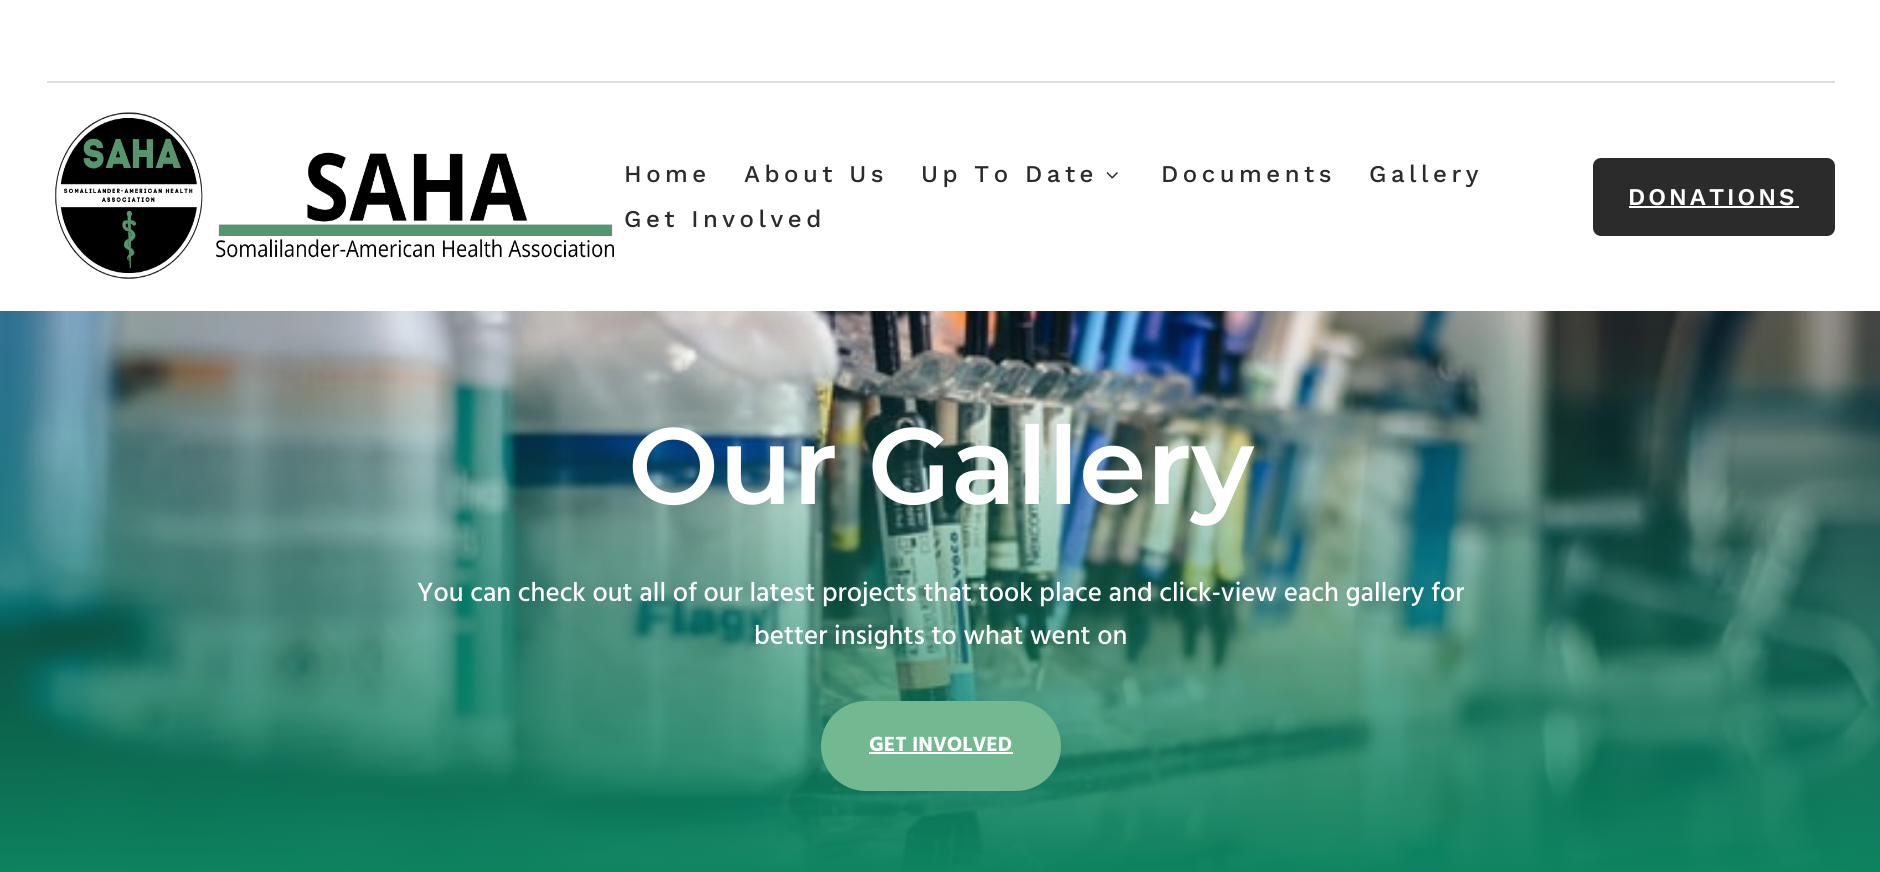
#include <cairo.h>
#include <math.h>
#include <stddef.h>


static void set_color(cairo_t *cr, unsigned color) {
    cairo_set_source_rgb(cr, (color >> 16) / 255.0, (color >> 8 & 255) / 255.0, (color & 255) / 255.0);
}

static void draw_text(cairo_t *cr, double x, double y, const char *s, const char *family, double size, int italic, int bold, unsigned color) {
    cairo_select_font_face(cr, family, italic ? CAIRO_FONT_SLANT_ITALIC : CAIRO_FONT_SLANT_NORMAL,
        bold ? CAIRO_FONT_WEIGHT_BOLD : CAIRO_FONT_WEIGHT_NORMAL);
    cairo_set_font_size(cr, size);
    set_color(cr, color);
    cairo_move_to(cr, x, y);
    cairo_show_text(cr, s);
}

static void draw_spaced(cairo_t *cr, double x, double y, const char *s, double letter, double word) {
    cairo_move_to(cr, x, y);
    while (*s) {
        char ch[5] = {0};
        int n = 0;
        do ch[n++] = *s++; while ((*s & 0xC0) == 0x80);
        cairo_show_text(cr, ch);
        cairo_rel_move_to(cr, letter + word * (*ch == ' '), 0);
    }
}

static void fill_rect(cairo_t *cr, double x, double y, double w, double h, unsigned color) {
    set_color(cr, color);
    cairo_rectangle(cr, x, y, w, h);
    cairo_fill(cr);
}

static void rounded_rect(cairo_t *cr, double x, double y, double w, double h, double r) {
    cairo_new_sub_path(cr);
    cairo_arc(cr, x + w - r, y + h - r, r, 0, M_PI / 2);
    cairo_arc(cr, x + r, y + h - r, r, M_PI / 2, M_PI);
    cairo_arc(cr, x + r, y + r, r, M_PI, 1.5 * M_PI);
    cairo_arc(cr, x + w - r, y + r, r, 1.5 * M_PI, 2 * M_PI);
    cairo_close_path(cr);
}

static void draw_image(cairo_t *cr, const char *path, double x, double y, double w, double h) {
    cairo_surface_t *image = cairo_image_surface_create_from_png(path);
    cairo_save(cr);
    cairo_set_source_surface(cr, image, x, y);
    cairo_rectangle(cr, x, y, w, h);
    cairo_fill(cr);
    cairo_restore(cr);
    cairo_surface_destroy(image);
}

int main(void) {
    cairo_surface_t *surface = cairo_image_surface_create(CAIRO_FORMAT_RGB24, 1880, 872);
    cairo_t *cr = cairo_create(surface);
    cairo_font_options_t *options = cairo_font_options_create();
    cairo_font_options_set_hint_metrics(options, CAIRO_HINT_METRICS_OFF);
    cairo_font_options_set_hint_style(options, CAIRO_HINT_STYLE_NONE);
    cairo_set_font_options(cr, options);
    cairo_set_miter_limit(cr, 4);
    set_color(cr, 0xFFFFFF);
    cairo_paint(cr);
    fill_rect(cr, 47, 81, 1788, 2, 0xDDDDDD);
    draw_image(cr, "assets/img1.png", 55, 112, 559, 167);
    cairo_select_font_face(cr, "Work Sans Medium", CAIRO_FONT_SLANT_NORMAL, CAIRO_FONT_WEIGHT_NORMAL);
    cairo_set_font_size(cr, 24);
    set_color(cr, 0x2B2B2B);
    draw_spaced(cr, 624, 182, "Home", 4.5, 0);
    draw_spaced(cr, 744, 182, "About Us", 4.5, 0);
    draw_spaced(cr, 921, 182, "Up To Date", 4.5, 0);
    draw_image(cr, "assets/img2.png", 1106, 172, 12, 7);
    draw_spaced(cr, 1161, 182, "Documents", 4.5, 0);
    draw_spaced(cr, 1369, 182, "Gallery", 4.5, 0);
    draw_spaced(cr, 624, 227, "Get Involved", 4.5, 0);
    rounded_rect(cr, 1593, 158, 242, 78, 8);
    cairo_fill(cr);
    cairo_select_font_face(cr, "Work Sans SemiBold", CAIRO_FONT_SLANT_NORMAL, CAIRO_FONT_WEIGHT_NORMAL);
    set_color(cr, 0xFFFFFF);
    draw_spaced(cr, 1628, 205, "DONATIONS", 3, 0);
    fill_rect(cr, 1629, 206, 170, 2, 0xFFFFFF);
    draw_image(cr, "assets/img3.png", 0, 311, 1880, 561);
    draw_text(cr, 628, 504, "Our Gallery", "Montserrat SemiBold", 108, 0, 0, 0xFFFFFF);
    draw_text(cr, 417, 601, "You can check out all of our latest projects that took place and click-view each gallery for", "Hind Medium", 27, 0, 0, 0xFFFFFF);
    draw_text(cr, 754, 644, "better insights to what went on", "Hind Medium", 27, 0, 0, 0xFFFFFF);
    set_color(cr, 0x72B890);
    rounded_rect(cr, 821, 701, 240, 90, 45);
    cairo_fill(cr);
    draw_text(cr, 869, 751, "GET INVOLVED", "Hind", 21, 0, 1, 0xFFFFFF);
    fill_rect(cr, 869, 752, 144, 2, 0xFFFFFF);
    cairo_surface_write_to_png(surface, "output.png");
    cairo_font_options_destroy(options);
    cairo_destroy(cr);
    cairo_surface_destroy(surface);
    return 0;
}
